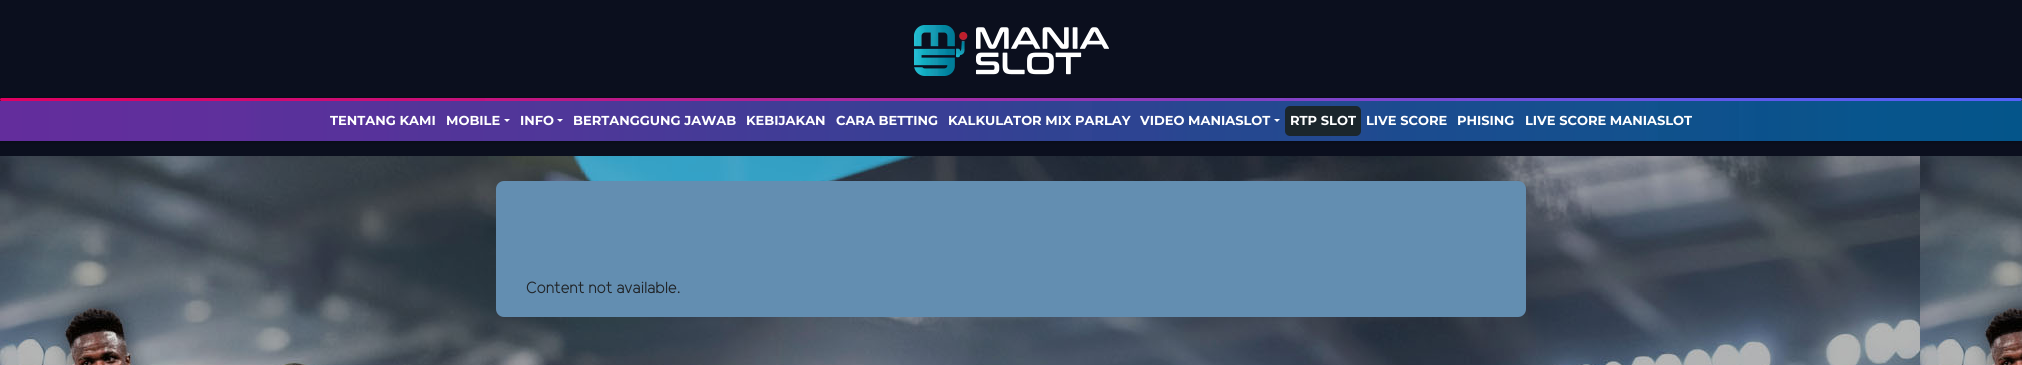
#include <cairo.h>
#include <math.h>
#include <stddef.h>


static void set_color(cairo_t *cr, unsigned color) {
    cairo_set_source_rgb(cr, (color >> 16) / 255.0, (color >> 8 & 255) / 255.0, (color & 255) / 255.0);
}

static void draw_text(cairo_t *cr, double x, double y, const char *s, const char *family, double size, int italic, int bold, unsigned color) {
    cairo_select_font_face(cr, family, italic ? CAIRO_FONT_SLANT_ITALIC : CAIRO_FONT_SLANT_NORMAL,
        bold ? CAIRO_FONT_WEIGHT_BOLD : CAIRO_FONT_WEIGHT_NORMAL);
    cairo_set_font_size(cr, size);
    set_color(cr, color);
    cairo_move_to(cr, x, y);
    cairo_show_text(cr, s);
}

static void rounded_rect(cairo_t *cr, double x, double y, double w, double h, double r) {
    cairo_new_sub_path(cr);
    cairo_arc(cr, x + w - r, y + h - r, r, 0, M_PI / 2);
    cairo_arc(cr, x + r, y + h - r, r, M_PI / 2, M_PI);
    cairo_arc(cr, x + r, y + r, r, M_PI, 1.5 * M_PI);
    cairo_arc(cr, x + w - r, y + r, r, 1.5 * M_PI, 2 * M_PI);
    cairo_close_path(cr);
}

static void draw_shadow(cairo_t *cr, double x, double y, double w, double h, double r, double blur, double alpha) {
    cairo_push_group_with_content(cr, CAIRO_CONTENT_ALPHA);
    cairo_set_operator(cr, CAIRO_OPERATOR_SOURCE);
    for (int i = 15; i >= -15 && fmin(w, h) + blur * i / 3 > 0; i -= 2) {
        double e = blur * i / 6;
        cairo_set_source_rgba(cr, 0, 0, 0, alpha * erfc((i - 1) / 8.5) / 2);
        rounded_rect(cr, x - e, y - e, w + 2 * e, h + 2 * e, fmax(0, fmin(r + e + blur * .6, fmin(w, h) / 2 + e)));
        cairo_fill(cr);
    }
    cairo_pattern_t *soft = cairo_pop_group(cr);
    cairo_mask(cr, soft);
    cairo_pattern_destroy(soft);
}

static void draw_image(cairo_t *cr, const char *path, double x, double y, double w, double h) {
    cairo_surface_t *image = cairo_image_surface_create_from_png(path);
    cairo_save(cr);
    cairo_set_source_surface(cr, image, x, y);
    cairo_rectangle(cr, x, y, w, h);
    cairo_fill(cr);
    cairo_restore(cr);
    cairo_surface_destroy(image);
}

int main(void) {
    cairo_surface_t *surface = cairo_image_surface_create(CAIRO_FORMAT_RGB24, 2022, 365);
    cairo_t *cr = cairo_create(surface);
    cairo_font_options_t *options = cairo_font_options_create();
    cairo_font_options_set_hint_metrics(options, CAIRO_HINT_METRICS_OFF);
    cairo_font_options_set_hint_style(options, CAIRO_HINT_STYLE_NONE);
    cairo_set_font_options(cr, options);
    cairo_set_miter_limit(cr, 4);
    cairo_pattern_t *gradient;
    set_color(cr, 0x0B0F1E);
    cairo_paint(cr);
    draw_image(cr, "assets/img1.png", 914, 25, 195, 51);
    set_color(cr, 0x000000);
    draw_shadow(cr, 0, 100, 2022, 40, 0, 2.5, 0.7);
    gradient = cairo_pattern_create_linear(0, 121, 2022, 121);
    cairo_pattern_add_color_stop_rgba(gradient, 0, 0.388, 0.176, 0.612, 1);
    cairo_pattern_add_color_stop_rgba(gradient, 0.12, 0.369, 0.188, 0.612, 1);
    cairo_pattern_add_color_stop_rgba(gradient, 0.13, 0.353, 0.192, 0.608, 1);
    cairo_pattern_add_color_stop_rgba(gradient, 0.19, 0.341, 0.196, 0.608, 1);
    cairo_pattern_add_color_stop_rgba(gradient, 0.2, 0.329, 0.204, 0.6, 1);
    cairo_pattern_add_color_stop_rgba(gradient, 0.28, 0.31, 0.216, 0.6, 1);
    cairo_pattern_add_color_stop_rgba(gradient, 0.44, 0.224, 0.247, 0.584, 1);
    cairo_pattern_add_color_stop_rgba(gradient, 0.47, 0.224, 0.247, 0.584, 1);
    cairo_pattern_add_color_stop_rgba(gradient, 0.52, 0.188, 0.263, 0.573, 1);
    cairo_pattern_add_color_stop_rgba(gradient, 0.54, 0.192, 0.267, 0.576, 1);
    cairo_pattern_add_color_stop_rgba(gradient, 0.54, 0.18, 0.263, 0.573, 1);
    cairo_pattern_add_color_stop_rgba(gradient, 0.57, 0.176, 0.267, 0.573, 1);
    cairo_pattern_add_color_stop_rgba(gradient, 0.59, 0.153, 0.278, 0.565, 1);
    cairo_pattern_add_color_stop_rgba(gradient, 0.67, 0.133, 0.29, 0.565, 1);
    cairo_pattern_add_color_stop_rgba(gradient, 0.69, 0.11, 0.294, 0.561, 1);
    cairo_pattern_add_color_stop_rgba(gradient, 0.81, 0.075, 0.318, 0.557, 1);
    cairo_pattern_add_color_stop_rgba(gradient, 0.82, 0.063, 0.322, 0.557, 1);
    cairo_pattern_add_color_stop_rgba(gradient, 0.82, 0.059, 0.318, 0.545, 1);
    cairo_pattern_add_color_stop_rgba(gradient, 0.85, 0.059, 0.318, 0.553, 1);
    cairo_pattern_add_color_stop_rgba(gradient, 0.86, 0.047, 0.318, 0.549, 1);
    cairo_pattern_add_color_stop_rgba(gradient, 0.86, 0.055, 0.325, 0.557, 1);
    cairo_pattern_add_color_stop_rgba(gradient, 0.87, 0.043, 0.318, 0.549, 1);
    cairo_pattern_add_color_stop_rgba(gradient, 0.89, 0.047, 0.325, 0.545, 1);
    cairo_pattern_add_color_stop_rgba(gradient, 0.92, 0.031, 0.333, 0.553, 1);
    cairo_pattern_add_color_stop_rgba(gradient, 1, 0.016, 0.333, 0.541, 1);
    cairo_set_source(cr, gradient);
    cairo_pattern_destroy(gradient);
    cairo_rectangle(cr, 0, 101, 2022, 40);
    cairo_fill(cr);
    gradient = cairo_pattern_create_linear(0, 100, 2022, 99);
    cairo_pattern_add_color_stop_rgba(gradient, 0, 0.878, 0, 0.38, 1);
    cairo_pattern_add_color_stop_rgba(gradient, 0.01, 0.878, 0, 0.38, 1);
    cairo_pattern_add_color_stop_rgba(gradient, 0.01, 0.867, 0, 0.376, 1);
    cairo_pattern_add_color_stop_rgba(gradient, 0.01, 0.875, 0.008, 0.384, 1);
    cairo_pattern_add_color_stop_rgba(gradient, 0.06, 0.867, 0.012, 0.392, 1);
    cairo_pattern_add_color_stop_rgba(gradient, 0.08, 0.847, 0.02, 0.4, 1);
    cairo_pattern_add_color_stop_rgba(gradient, 0.12, 0.839, 0.031, 0.427, 1);
    cairo_pattern_add_color_stop_rgba(gradient, 0.13, 0.827, 0.035, 0.427, 1);
    cairo_pattern_add_color_stop_rgba(gradient, 0.15, 0.827, 0.039, 0.447, 1);
    cairo_pattern_add_color_stop_rgba(gradient, 0.17, 0.804, 0.051, 0.447, 1);
    cairo_pattern_add_color_stop_rgba(gradient, 0.18, 0.808, 0.055, 0.459, 1);
    cairo_pattern_add_color_stop_rgba(gradient, 0.2, 0.8, 0.051, 0.459, 1);
    cairo_pattern_add_color_stop_rgba(gradient, 0.22, 0.78, 0.071, 0.482, 1);
    cairo_pattern_add_color_stop_rgba(gradient, 0.24, 0.773, 0.067, 0.486, 1);
    cairo_pattern_add_color_stop_rgba(gradient, 0.24, 0.776, 0.071, 0.49, 1);
    cairo_pattern_add_color_stop_rgba(gradient, 0.24, 0.773, 0.078, 0.502, 1);
    cairo_pattern_add_color_stop_rgba(gradient, 0.27, 0.753, 0.086, 0.506, 1);
    cairo_pattern_add_color_stop_rgba(gradient, 0.28, 0.741, 0.09, 0.522, 1);
    cairo_pattern_add_color_stop_rgba(gradient, 0.3, 0.745, 0.094, 0.525, 1);
    cairo_pattern_add_color_stop_rgba(gradient, 0.3, 0.737, 0.094, 0.533, 1);
    cairo_pattern_add_color_stop_rgba(gradient, 0.32, 0.725, 0.106, 0.541, 1);
    cairo_pattern_add_color_stop_rgba(gradient, 0.33, 0.718, 0.114, 0.561, 1);
    cairo_pattern_add_color_stop_rgba(gradient, 0.35, 0.714, 0.114, 0.561, 1);
    cairo_pattern_add_color_stop_rgba(gradient, 0.35, 0.702, 0.122, 0.569, 1);
    cairo_pattern_add_color_stop_rgba(gradient, 0.38, 0.682, 0.129, 0.58, 1);
    cairo_pattern_add_color_stop_rgba(gradient, 0.38, 0.69, 0.137, 0.588, 1);
    cairo_pattern_add_color_stop_rgba(gradient, 0.38, 0.678, 0.133, 0.584, 1);
    cairo_pattern_add_color_stop_rgba(gradient, 0.4, 0.678, 0.137, 0.604, 1);
    cairo_pattern_add_color_stop_rgba(gradient, 0.4, 0.667, 0.137, 0.6, 1);
    cairo_pattern_add_color_stop_rgba(gradient, 0.41, 0.671, 0.149, 0.616, 1);
    cairo_pattern_add_color_stop_rgba(gradient, 0.43, 0.655, 0.153, 0.62, 1);
    cairo_pattern_add_color_stop_rgba(gradient, 0.43, 0.647, 0.157, 0.627, 1);
    cairo_pattern_add_color_stop_rgba(gradient, 0.45, 0.643, 0.157, 0.627, 1);
    cairo_pattern_add_color_stop_rgba(gradient, 0.46, 0.627, 0.176, 0.651, 1);
    cairo_pattern_add_color_stop_rgba(gradient, 0.49, 0.62, 0.18, 0.667, 1);
    cairo_pattern_add_color_stop_rgba(gradient, 0.51, 0.588, 0.196, 0.69, 1);
    cairo_pattern_add_color_stop_rgba(gradient, 0.55, 0.569, 0.212, 0.71, 1);
    cairo_pattern_add_color_stop_rgba(gradient, 0.55, 0.569, 0.22, 0.722, 1);
    cairo_pattern_add_color_stop_rgba(gradient, 0.56, 0.561, 0.224, 0.722, 1);
    cairo_pattern_add_color_stop_rgba(gradient, 0.58, 0.549, 0.224, 0.733, 1);
    cairo_pattern_add_color_stop_rgba(gradient, 0.6, 0.525, 0.239, 0.753, 1);
    cairo_pattern_add_color_stop_rgba(gradient, 0.63, 0.518, 0.255, 0.773, 1);
    cairo_pattern_add_color_stop_rgba(gradient, 0.64, 0.514, 0.251, 0.769, 1);
    cairo_pattern_add_color_stop_rgba(gradient, 0.64, 0.514, 0.255, 0.78, 1);
    cairo_pattern_add_color_stop_rgba(gradient, 0.66, 0.498, 0.263, 0.788, 1);
    cairo_pattern_add_color_stop_rgba(gradient, 0.66, 0.49, 0.263, 0.796, 1);
    cairo_pattern_add_color_stop_rgba(gradient, 0.67, 0.49, 0.263, 0.796, 1);
    cairo_pattern_add_color_stop_rgba(gradient, 0.68, 0.49, 0.271, 0.808, 1);
    cairo_pattern_add_color_stop_rgba(gradient, 0.7, 0.467, 0.278, 0.812, 1);
    cairo_pattern_add_color_stop_rgba(gradient, 0.72, 0.459, 0.286, 0.824, 1);
    cairo_pattern_add_color_stop_rgba(gradient, 0.72, 0.463, 0.29, 0.835, 1);
    cairo_pattern_add_color_stop_rgba(gradient, 0.75, 0.435, 0.302, 0.847, 1);
    cairo_pattern_add_color_stop_rgba(gradient, 0.76, 0.431, 0.306, 0.867, 1);
    cairo_pattern_add_color_stop_rgba(gradient, 0.82, 0.404, 0.329, 0.886, 1);
    cairo_pattern_add_color_stop_rgba(gradient, 0.83, 0.4, 0.329, 0.902, 1);
    cairo_pattern_add_color_stop_rgba(gradient, 0.83, 0.404, 0.333, 0.898, 1);
    cairo_pattern_add_color_stop_rgba(gradient, 0.83, 0.392, 0.333, 0.902, 1);
    cairo_pattern_add_color_stop_rgba(gradient, 0.89, 0.365, 0.349, 0.933, 1);
    cairo_pattern_add_color_stop_rgba(gradient, 0.91, 0.365, 0.353, 0.937, 1);
    cairo_pattern_add_color_stop_rgba(gradient, 0.96, 0.333, 0.373, 0.961, 1);
    cairo_pattern_add_color_stop_rgba(gradient, 1, 0.333, 0.376, 0.973, 1);
    cairo_set_source(cr, gradient);
    cairo_pattern_destroy(gradient);
    rounded_rect(cr, 0, 98, 2022, 3, 1.5);
    cairo_fill(cr);
    draw_text(cr, 330, 125, "TENTANG KAMI", "Montserrat", 13, 0, 1, 0xFFFFFF);
    draw_text(cr, 446, 125, "MOBILE", "Montserrat", 13, 0, 1, 0xFFFFFF);
    cairo_new_path(cr);
    cairo_move_to(cr, 504, 119);
    cairo_line_to(cr, 510, 119);
    cairo_line_to(cr, 507, 122);
    cairo_close_path(cr);
    cairo_fill(cr);
    draw_text(cr, 520, 125, "INFO", "Montserrat", 13, 0, 1, 0xFFFFFF);
    cairo_new_path(cr);
    cairo_move_to(cr, 557, 119);
    cairo_line_to(cr, 563, 119);
    cairo_line_to(cr, 560, 122);
    cairo_close_path(cr);
    cairo_fill(cr);
    draw_text(cr, 573, 125, "BERTANGGUNG JAWAB", "Montserrat", 13, 0, 1, 0xFFFFFF);
    draw_text(cr, 746, 125, "KEBIJAKAN", "Montserrat", 13, 0, 1, 0xFFFFFF);
    draw_text(cr, 836, 125, "CARA BETTING", "Montserrat", 13, 0, 1, 0xFFFFFF);
    draw_text(cr, 948, 125, "KALKULATOR MIX PARLAY", "Montserrat", 13, 0, 1, 0xFFFFFF);
    draw_text(cr, 1140, 125, "VIDEO MANIASLOT", "Montserrat", 13, 0, 1, 0xFFFFFF);
    cairo_new_path(cr);
    cairo_move_to(cr, 1274, 119);
    cairo_line_to(cr, 1280, 119);
    cairo_line_to(cr, 1277, 122);
    cairo_close_path(cr);
    cairo_fill(cr);
    set_color(cr, 0x1B262C);
    rounded_rect(cr, 1285, 106, 76, 30, 5);
    cairo_fill(cr);
    draw_text(cr, 1290, 125, "RTP SLOT", "Montserrat", 13, 0, 1, 0xFFFFFF);
    draw_text(cr, 1366, 125, "LIVE SCORE", "Montserrat", 13, 0, 1, 0xFFFFFF);
    draw_text(cr, 1457, 125, "PHISING", "Montserrat", 13, 0, 1, 0xFFFFFF);
    draw_text(cr, 1525, 125, "LIVE SCORE MANIASLOT", "Montserrat", 13, 0, 1, 0xFFFFFF);
    draw_image(cr, "assets/img2.png", 0, 156, 2022, 209);
    set_color(cr, 0x638EB1);
    rounded_rect(cr, 496, 181, 1030, 136, 8);
    cairo_fill(cr);
    draw_text(cr, 526, 293, "Content not available.", "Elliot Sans", 16, 0, 0, 0x212529);
    cairo_surface_write_to_png(surface, "output.png");
    cairo_font_options_destroy(options);
    cairo_destroy(cr);
    cairo_surface_destroy(surface);
    return 0;
}
